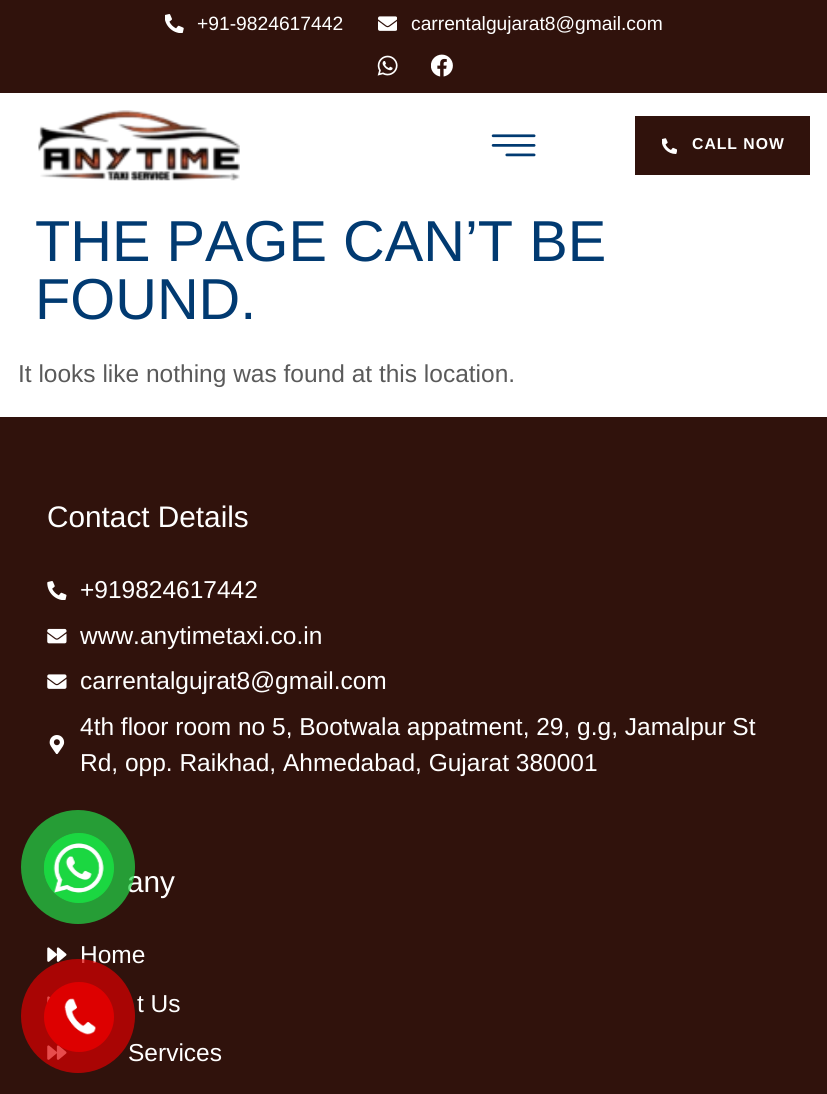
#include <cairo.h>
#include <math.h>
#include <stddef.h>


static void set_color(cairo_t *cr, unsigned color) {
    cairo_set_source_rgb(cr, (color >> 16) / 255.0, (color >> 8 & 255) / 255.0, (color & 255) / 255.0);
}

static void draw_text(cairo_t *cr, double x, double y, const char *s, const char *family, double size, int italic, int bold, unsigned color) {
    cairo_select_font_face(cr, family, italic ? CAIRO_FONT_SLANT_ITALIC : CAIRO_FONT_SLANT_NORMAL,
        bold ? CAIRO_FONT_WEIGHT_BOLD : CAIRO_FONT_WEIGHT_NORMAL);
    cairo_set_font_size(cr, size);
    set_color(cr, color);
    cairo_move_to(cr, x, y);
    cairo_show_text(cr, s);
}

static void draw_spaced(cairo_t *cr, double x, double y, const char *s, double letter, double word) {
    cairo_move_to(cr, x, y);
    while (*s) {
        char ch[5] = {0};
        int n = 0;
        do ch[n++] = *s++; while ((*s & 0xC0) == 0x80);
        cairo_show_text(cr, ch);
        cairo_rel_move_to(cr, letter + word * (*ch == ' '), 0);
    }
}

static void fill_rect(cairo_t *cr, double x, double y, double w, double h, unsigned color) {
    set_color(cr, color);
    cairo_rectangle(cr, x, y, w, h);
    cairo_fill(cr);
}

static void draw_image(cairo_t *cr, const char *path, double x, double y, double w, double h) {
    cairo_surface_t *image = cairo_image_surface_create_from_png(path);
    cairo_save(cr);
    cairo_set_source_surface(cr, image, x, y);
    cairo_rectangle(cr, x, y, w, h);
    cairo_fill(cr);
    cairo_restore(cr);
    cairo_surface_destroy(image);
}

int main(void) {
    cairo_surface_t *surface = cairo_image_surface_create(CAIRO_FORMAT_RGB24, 827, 1094);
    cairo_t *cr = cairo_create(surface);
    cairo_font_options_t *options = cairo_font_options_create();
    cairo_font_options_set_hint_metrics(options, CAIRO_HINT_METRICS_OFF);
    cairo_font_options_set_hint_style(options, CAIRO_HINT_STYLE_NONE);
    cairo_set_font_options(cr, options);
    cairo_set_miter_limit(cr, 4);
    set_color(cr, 0xFFFFFF);
    cairo_paint(cr);
    fill_rect(cr, 0, 0, 827, 93, 0x30120C);
    draw_image(cr, "assets/img1.png", 165, 14, 19, 19);
    draw_text(cr, 197, 30, "+91-9824617442", "Liberation Sans", 19.25, 0, 0, 0xFFFFFF);
    draw_image(cr, "assets/img2.png", 378, 16, 19, 15);
    draw_text(cr, 411, 30, "carrentalgujarat8@gmail.com", "Liberation Sans", 19.25, 0, 0, 0xFFFFFF);
    draw_image(cr, "assets/img3.png", 377, 55, 21, 21);
    draw_image(cr, "assets/img4.png", 431, 54, 22, 23);
    draw_image(cr, "assets/img5.png", 38, 110, 202, 71);
    draw_image(cr, "assets/img6.png", 491, 134, 45, 23);
    fill_rect(cr, 635, 116, 175, 59, 0x30120C);
    draw_image(cr, "assets/img7.png", 662, 138, 15, 16);
    cairo_select_font_face(cr, "Liberation Sans", CAIRO_FONT_SLANT_NORMAL, CAIRO_FONT_WEIGHT_BOLD);
    cairo_set_font_size(cr, 15.75);
    set_color(cr, 0xFFFFFF);
    draw_spaced(cr, 692, 149, "CALL NOW", 1, 0);
    draw_text(cr, 35, 261, "THE PAGE CAN’T BE", "Liberation Sans", 57.75, 0, 0, 0x013A71);
    draw_text(cr, 35, 319, "FOUND.", "Liberation Sans", 57.75, 0, 0, 0x013A71);
    draw_text(cr, 18, 382, "It looks like nothing was found at this location.", "Liberation Sans", 24.5, 0, 0, 0x5A5A5A);
    fill_rect(cr, 0, 417, 827, 677, 0x30120C);
    draw_text(cr, 47, 527, "Contact Details", "Liberation Sans", 29.75, 0, 0, 0xFFFFFF);
    draw_image(cr, "assets/img8.png", 47, 581, 20, 19);
    draw_text(cr, 80, 598, "+919824617442", "Liberation Sans", 24.5, 0, 0, 0xFFFFFF);
    draw_image(cr, "assets/img9.png", 47, 628, 20, 16);
    draw_text(cr, 80, 644, "www.anytimetaxi.co.in", "Liberation Sans", 24.5, 0, 0, 0xFFFFFF);
    draw_image(cr, "assets/img10.png", 47, 674, 20, 15);
    draw_text(cr, 80, 689, "carrentalgujrat8@gmail.com", "Liberation Sans", 24.5, 0, 0, 0xFFFFFF);
    draw_image(cr, "assets/img11.png", 49, 735, 16, 19);
    draw_text(cr, 80, 735, "4th floor room no 5, Bootwala appatment, 29, g.g, Jamalpur St", "Liberation Sans", 24.5, 0, 0, 0xFFFFFF);
    draw_text(cr, 80, 771, "Rd, opp. Raikhad, Ahmedabad, Gujarat 380001", "Liberation Sans", 24.5, 0, 0, 0xFFFFFF);
    draw_text(cr, 127, 892, "any", "Liberation Sans", 29.75, 0, 0, 0xFFFFFF);
    draw_image(cr, "assets/img12.png", 47, 947, 20, 15);
    draw_text(cr, 80, 963, "Home", "Liberation Sans", 24.5, 0, 0, 0xFFFFFF);
    draw_image(cr, "assets/img13.png", 47, 996, 4, 7);
    draw_text(cr, 137, 1012, "t Us", "Liberation Sans", 24.5, 0, 0, 0xFFFFFF);
    draw_image(cr, "assets/img12.png", 47, 1045, 20, 15);
    draw_text(cr, 128, 1061, "Services", "Liberation Sans", 24.5, 0, 0, 0xFFFFFF);
    cairo_set_source_rgba(cr, 0.137, 0.851, 0.282, 0.7);
    cairo_new_path(cr);
    cairo_arc(cr, 78, 867, 57, 0, 2 * M_PI);
    cairo_fill(cr);
    set_color(cr, 0x1CD741);
    cairo_arc(cr, 79, 868, 35, 0, 2 * M_PI);
    cairo_fill(cr);
    draw_image(cr, "assets/img14.png", 44, 833, 69, 70);
    cairo_set_source_rgba(cr, 0.867, 0, 0, 0.7);
    cairo_arc(cr, 78, 1016, 57, 0, 2 * M_PI);
    cairo_fill(cr);
    set_color(cr, 0xDD0000);
    cairo_arc(cr, 79, 1017, 35, 0, 2 * M_PI);
    cairo_fill(cr);
    draw_image(cr, "assets/img15.png", 64, 998, 32, 37);
    cairo_surface_write_to_png(surface, "output.png");
    cairo_font_options_destroy(options);
    cairo_destroy(cr);
    cairo_surface_destroy(surface);
    return 0;
}
